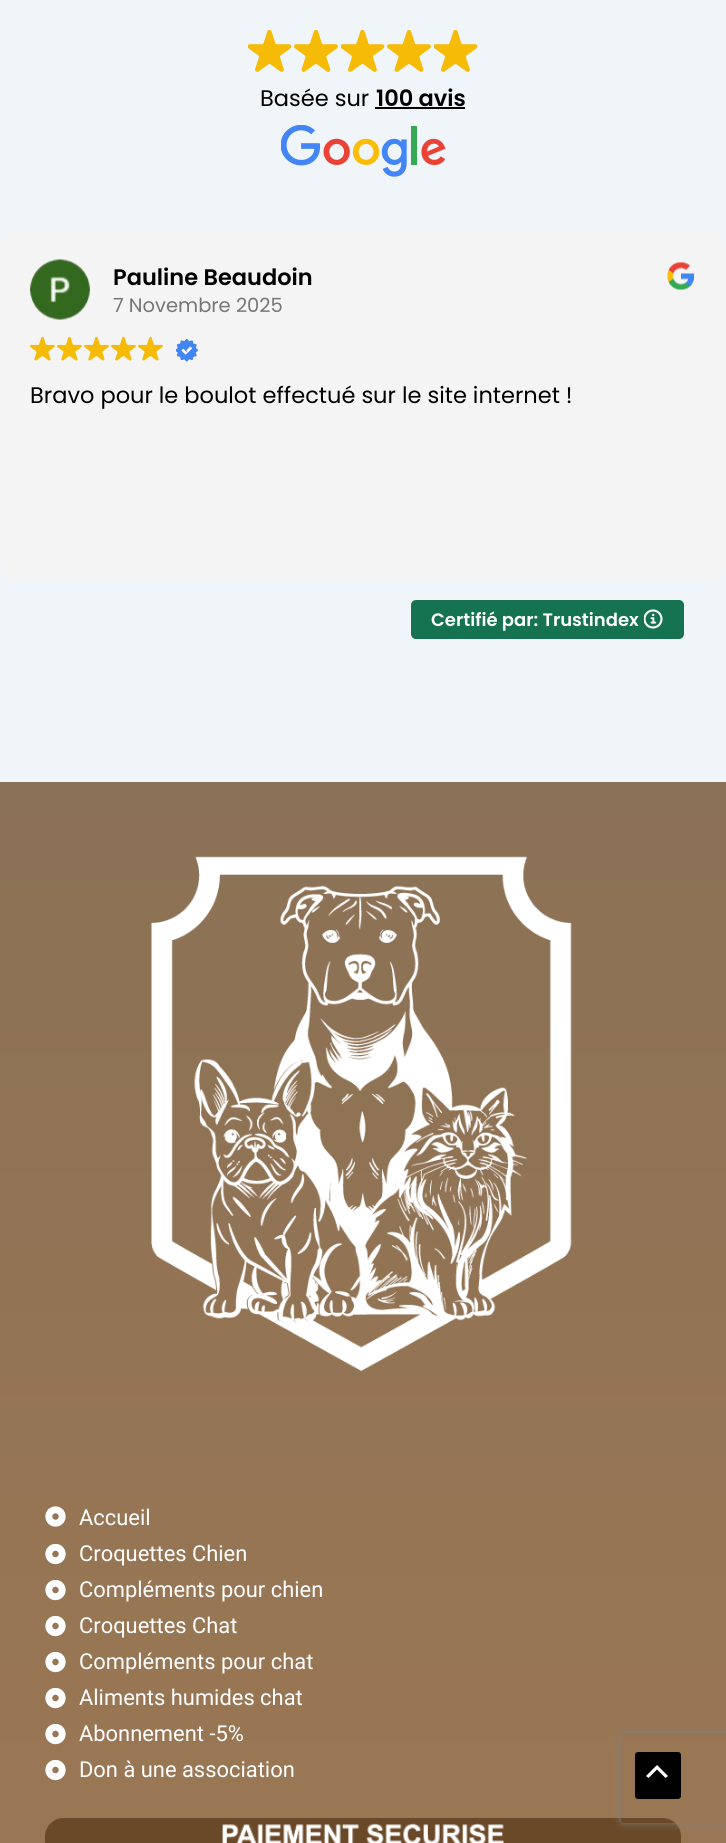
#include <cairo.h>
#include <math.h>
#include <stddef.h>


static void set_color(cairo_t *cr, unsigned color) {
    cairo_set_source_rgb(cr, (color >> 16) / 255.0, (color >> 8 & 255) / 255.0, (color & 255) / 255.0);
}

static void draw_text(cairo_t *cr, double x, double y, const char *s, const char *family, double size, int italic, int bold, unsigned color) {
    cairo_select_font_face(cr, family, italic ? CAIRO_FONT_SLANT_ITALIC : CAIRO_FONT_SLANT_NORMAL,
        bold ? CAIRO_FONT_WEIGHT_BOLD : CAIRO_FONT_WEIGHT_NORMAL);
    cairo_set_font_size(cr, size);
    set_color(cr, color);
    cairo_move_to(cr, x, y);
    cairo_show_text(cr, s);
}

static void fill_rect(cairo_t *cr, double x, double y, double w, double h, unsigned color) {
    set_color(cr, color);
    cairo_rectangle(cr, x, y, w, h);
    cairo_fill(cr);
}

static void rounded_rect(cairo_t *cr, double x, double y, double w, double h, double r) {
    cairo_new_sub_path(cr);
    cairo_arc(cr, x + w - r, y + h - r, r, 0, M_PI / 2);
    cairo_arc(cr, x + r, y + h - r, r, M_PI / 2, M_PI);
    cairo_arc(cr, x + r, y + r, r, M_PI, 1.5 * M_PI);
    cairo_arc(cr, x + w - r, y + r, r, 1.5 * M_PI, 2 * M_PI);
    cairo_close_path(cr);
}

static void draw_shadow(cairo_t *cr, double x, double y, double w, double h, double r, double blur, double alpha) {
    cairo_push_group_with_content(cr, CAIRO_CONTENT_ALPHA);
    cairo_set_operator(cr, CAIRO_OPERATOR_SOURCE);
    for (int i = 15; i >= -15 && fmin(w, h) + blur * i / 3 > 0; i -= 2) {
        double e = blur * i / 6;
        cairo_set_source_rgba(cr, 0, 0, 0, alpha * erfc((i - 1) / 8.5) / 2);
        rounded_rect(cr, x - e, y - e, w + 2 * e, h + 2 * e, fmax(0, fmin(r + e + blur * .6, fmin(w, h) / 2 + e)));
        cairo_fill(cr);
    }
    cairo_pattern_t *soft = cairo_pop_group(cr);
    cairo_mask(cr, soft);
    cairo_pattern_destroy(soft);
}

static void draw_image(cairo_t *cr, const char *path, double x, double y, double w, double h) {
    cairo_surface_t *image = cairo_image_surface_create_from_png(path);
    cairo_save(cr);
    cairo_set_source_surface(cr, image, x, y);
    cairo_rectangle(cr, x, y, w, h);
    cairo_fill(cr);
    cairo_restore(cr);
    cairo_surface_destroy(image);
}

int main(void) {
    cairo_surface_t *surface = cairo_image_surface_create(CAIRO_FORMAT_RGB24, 726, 1843);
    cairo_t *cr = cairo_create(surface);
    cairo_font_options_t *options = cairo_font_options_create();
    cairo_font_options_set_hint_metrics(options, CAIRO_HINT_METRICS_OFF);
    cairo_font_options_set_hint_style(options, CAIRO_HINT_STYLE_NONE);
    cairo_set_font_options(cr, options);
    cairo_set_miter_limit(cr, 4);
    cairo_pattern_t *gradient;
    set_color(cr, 0xF0F5FA);
    cairo_paint(cr);
    draw_image(cr, "assets/img1.png", 248, 29, 44, 43);
    draw_image(cr, "assets/img2.png", 294, 29, 44, 43);
    draw_image(cr, "assets/img1.png", 341, 29, 44, 43);
    draw_image(cr, "assets/img2.png", 387, 29, 44, 43);
    draw_image(cr, "assets/img1.png", 434, 29, 44, 43);
    draw_text(cr, 260, 106, "Basée sur", "Poppins", 22.5, 0, 0, 0x000000);
    draw_text(cr, 376, 106, "100 avis", "Poppins SemiBold", 22.5, 0, 0, 0x000000);
    fill_rect(cr, 375, 107, 90, 2, 0x000000);
    draw_image(cr, "assets/img3.png", 281, 125, 165, 52);
    set_color(cr, 0xF4F4F4);
    rounded_rect(cr, 0, 230, 726, 351, 18);
    cairo_fill(cr);
    draw_image(cr, "assets/img4.png", 30, 259, 60, 61);
    draw_text(cr, 113, 285, "Pauline Beaudoin", "Poppins SemiBold", 22.5, 0, 0, 0x000000);
    draw_text(cr, 113, 312, "7 Novembre 2025", "Poppins", 19.5, 0, 0, 0x767676);
    draw_image(cr, "assets/img5.png", 667, 261, 27, 30);
    draw_image(cr, "assets/img6.png", 30, 336, 25, 25);
    draw_image(cr, "assets/img6.png", 57, 336, 25, 25);
    draw_image(cr, "assets/img6.png", 84, 336, 25, 25);
    draw_image(cr, "assets/img6.png", 111, 336, 25, 25);
    draw_image(cr, "assets/img6.png", 138, 336, 25, 25);
    draw_image(cr, "assets/img7.png", 176, 339, 22, 23);
    draw_text(cr, 30, 403, "Bravo pour le boulot effectué sur le site internet !", "Poppins", 22.5, 0, 0, 0x000000);
    set_color(cr, 0x157351);
    rounded_rect(cr, 411, 600, 273, 39, 5);
    cairo_fill(cr);
    draw_text(cr, 431, 626, "Certifié par: Trustindex", "Poppins SemiBold", 18, 0, 0, 0xFFFFFF);
    draw_image(cr, "assets/img8.png", 644, 609, 19, 20);
    gradient = cairo_pattern_create_linear(363, 782, 363, 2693);
    cairo_pattern_add_color_stop_rgba(gradient, 0, 0.545, 0.443, 0.337, 1);
    cairo_pattern_add_color_stop_rgba(gradient, 1, 0.651, 0.486, 0.322, 1);
    cairo_set_source(cr, gradient);
    cairo_pattern_destroy(gradient);
    cairo_rectangle(cr, 0, 782, 726, 1061);
    cairo_fill(cr);
    draw_image(cr, "assets/img9.png", 151, 856, 421, 515);
    draw_image(cr, "assets/img10.png", 45, 1506, 21, 21);
    draw_text(cr, 79, 1525, "Accueil", "Roboto", 21.9, 0, 0, 0xFFFFFF);
    draw_image(cr, "assets/img11.png", 45, 1544, 21, 21);
    draw_text(cr, 79, 1561, "Croquettes Chien", "Roboto", 21.9, 0, 0, 0xFFFFFF);
    draw_image(cr, "assets/img12.png", 45, 1580, 21, 21);
    draw_text(cr, 79, 1597, "Compléments pour chien", "Roboto", 21.9, 0, 0, 0xFFFFFF);
    draw_image(cr, "assets/img13.png", 45, 1616, 21, 21);
    draw_text(cr, 79, 1633, "Croquettes Chat", "Roboto", 21.9, 0, 0, 0xFFFFFF);
    draw_image(cr, "assets/img14.png", 45, 1652, 21, 21);
    draw_text(cr, 79, 1669, "Compléments pour chat", "Roboto", 21.9, 0, 0, 0xFFFFFF);
    draw_image(cr, "assets/img15.png", 45, 1688, 21, 21);
    draw_text(cr, 79, 1705, "Aliments humides chat", "Roboto", 21.9, 0, 0, 0xFFFFFF);
    draw_image(cr, "assets/img16.png", 45, 1724, 21, 21);
    draw_text(cr, 79, 1741, "Abonnement -5%", "Roboto", 21.9, 0, 0, 0xFFFFFF);
    draw_image(cr, "assets/img17.png", 45, 1760, 21, 21);
    draw_text(cr, 79, 1777, "Don à une association", "Roboto", 21.9, 0, 0, 0xFFFFFF);
    draw_image(cr, "assets/img18.png", 45, 1818, 636, 25);
    cairo_save(cr);
    cairo_set_fill_rule(cr, CAIRO_FILL_RULE_EVEN_ODD);
    cairo_new_path(cr);
    cairo_move_to(cr, 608, 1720);
    cairo_line_to(cr, 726, 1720);
    cairo_line_to(cr, 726, 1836);
    cairo_line_to(cr, 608, 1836);
    cairo_close_path(cr);
    cairo_move_to(cr, 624, 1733);
    cairo_line_to(cr, 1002, 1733);
    cairo_curve_to(cr, 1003.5, 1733, 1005, 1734.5, 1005, 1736);
    cairo_line_to(cr, 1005, 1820);
    cairo_curve_to(cr, 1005, 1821.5, 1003.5, 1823, 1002, 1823);
    cairo_line_to(cr, 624, 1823);
    cairo_curve_to(cr, 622.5, 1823, 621, 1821.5, 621, 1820);
    cairo_line_to(cr, 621, 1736);
    cairo_curve_to(cr, 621, 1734.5, 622.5, 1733, 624, 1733);
    cairo_close_path(cr);
    cairo_clip(cr);
    set_color(cr, 0x808080);
    draw_shadow(cr, 621, 1733, 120, 90, 3, 4, 1);
    cairo_restore(cr);
    set_color(cr, 0x000000);
    rounded_rect(cr, 635, 1752, 46, 47, 3);
    cairo_fill(cr);
    set_color(cr, 0xFFFFFF);
    cairo_new_path(cr);
    cairo_move_to(cr, 668, 1776);
    cairo_line_to(cr, 657, 1765);
    cairo_line_to(cr, 646, 1776);
    cairo_line_to(cr, 648.5, 1778);
    cairo_line_to(cr, 657, 1769.5);
    cairo_line_to(cr, 665.5, 1778);
    cairo_close_path(cr);
    cairo_fill(cr);
    cairo_surface_write_to_png(surface, "output.png");
    cairo_font_options_destroy(options);
    cairo_destroy(cr);
    cairo_surface_destroy(surface);
    return 0;
}
